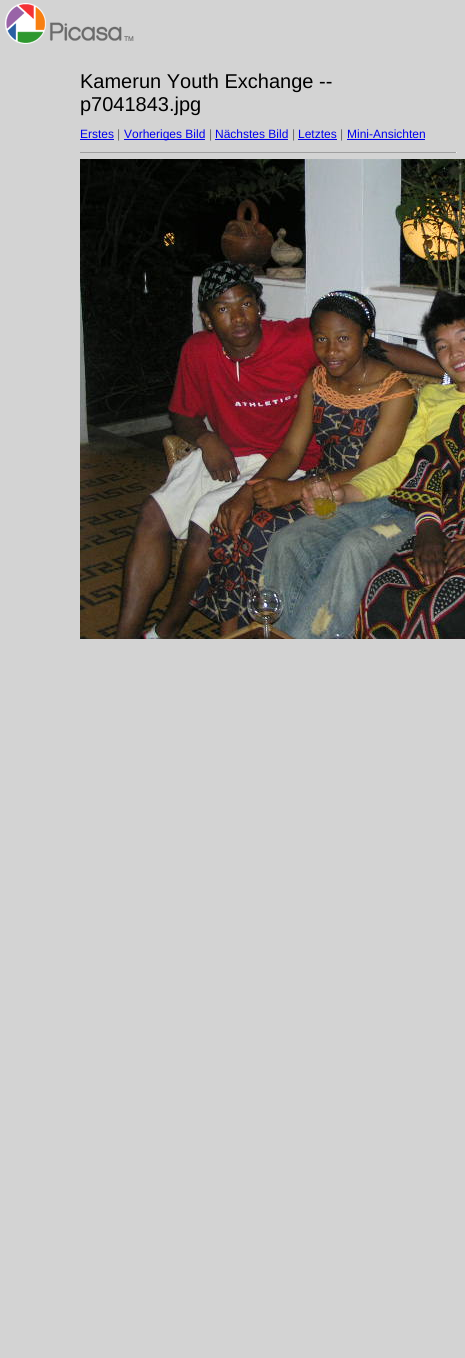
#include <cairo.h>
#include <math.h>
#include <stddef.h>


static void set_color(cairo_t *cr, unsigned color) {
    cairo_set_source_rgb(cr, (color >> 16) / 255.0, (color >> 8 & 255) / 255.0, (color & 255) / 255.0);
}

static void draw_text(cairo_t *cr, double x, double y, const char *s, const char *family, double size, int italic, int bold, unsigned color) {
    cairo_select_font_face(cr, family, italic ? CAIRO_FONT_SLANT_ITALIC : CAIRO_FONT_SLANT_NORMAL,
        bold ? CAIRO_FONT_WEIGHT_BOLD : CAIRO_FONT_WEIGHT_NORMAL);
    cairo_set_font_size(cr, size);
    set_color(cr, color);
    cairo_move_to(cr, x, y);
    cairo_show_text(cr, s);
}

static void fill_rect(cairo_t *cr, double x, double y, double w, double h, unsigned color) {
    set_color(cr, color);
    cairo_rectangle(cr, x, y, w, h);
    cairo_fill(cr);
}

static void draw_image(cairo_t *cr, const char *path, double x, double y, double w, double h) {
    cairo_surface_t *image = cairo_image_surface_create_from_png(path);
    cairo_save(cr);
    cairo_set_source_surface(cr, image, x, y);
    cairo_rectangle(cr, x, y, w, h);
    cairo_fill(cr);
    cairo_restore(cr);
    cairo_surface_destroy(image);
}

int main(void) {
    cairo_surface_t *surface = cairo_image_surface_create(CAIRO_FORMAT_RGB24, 465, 1358);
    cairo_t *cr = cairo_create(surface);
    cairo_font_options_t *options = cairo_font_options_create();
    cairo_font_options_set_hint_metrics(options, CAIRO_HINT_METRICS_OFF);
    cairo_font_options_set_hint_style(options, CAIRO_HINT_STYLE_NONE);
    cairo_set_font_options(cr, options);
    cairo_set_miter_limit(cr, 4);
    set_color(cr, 0xD3D3D3);
    cairo_paint(cr);
    draw_image(cr, "assets/img1.png", 5, 3, 129, 41);
    draw_text(cr, 80, 88, "Kamerun Youth Exchange --", "Liberation Sans", 20, 0, 0, 0x000000);
    draw_text(cr, 80, 111, "p7041843.jpg", "Liberation Sans", 20, 0, 0, 0x000000);
    draw_text(cr, 80, 138, "Erstes", "Liberation Sans", 12, 0, 0, 0x0000EE);
    fill_rect(cr, 80, 139, 34, 1, 0x0000EE);
    draw_text(cr, 117, 138, "|", "Liberation Sans", 12, 0, 0, 0x666666);
    fill_rect(cr, 124, 139, 81, 1, 0x0000EE);
    draw_text(cr, 124, 138, "Vorheriges Bild", "Liberation Sans", 12, 0, 0, 0x0000EE);
    draw_text(cr, 209, 138, "|", "Liberation Sans", 12, 0, 0, 0x666666);
    draw_text(cr, 215, 138, "Nächstes Bild", "Liberation Sans", 12, 0, 0, 0x0000EE);
    fill_rect(cr, 215, 139, 73, 1, 0x0000EE);
    draw_text(cr, 292, 138, "|", "Liberation Sans", 12, 0, 0, 0x666666);
    draw_text(cr, 298, 138, "Letztes", "Liberation Sans", 12, 0, 0, 0x0000EE);
    fill_rect(cr, 298, 139, 39, 1, 0x0000EE);
    draw_text(cr, 340, 138, "|", "Liberation Sans", 12, 0, 0, 0x666666);
    draw_text(cr, 347, 138, "Mini-Ansichten", "Liberation Sans", 12, 0, 0, 0x0000EE);
    fill_rect(cr, 347, 139, 78, 1, 0x0000EE);
    fill_rect(cr, 80, 152, 377, 1, 0x9F9F9F);
    fill_rect(cr, 456, 152, 1, 1, 0xEEEEEE);
    draw_image(cr, "assets/img2.png", 80, 159, 385, 480);
    cairo_surface_write_to_png(surface, "output.png");
    cairo_font_options_destroy(options);
    cairo_destroy(cr);
    cairo_surface_destroy(surface);
    return 0;
}
